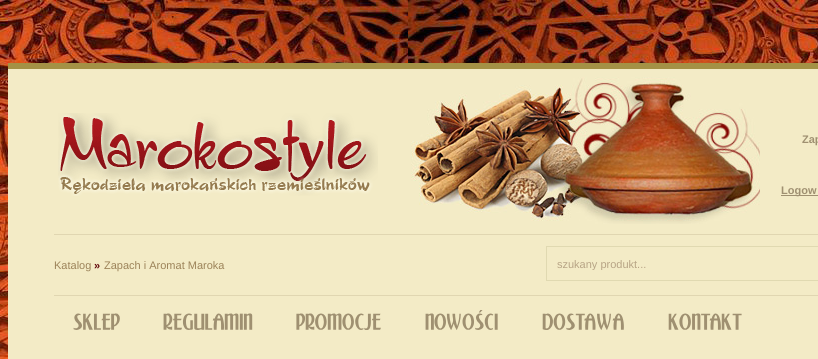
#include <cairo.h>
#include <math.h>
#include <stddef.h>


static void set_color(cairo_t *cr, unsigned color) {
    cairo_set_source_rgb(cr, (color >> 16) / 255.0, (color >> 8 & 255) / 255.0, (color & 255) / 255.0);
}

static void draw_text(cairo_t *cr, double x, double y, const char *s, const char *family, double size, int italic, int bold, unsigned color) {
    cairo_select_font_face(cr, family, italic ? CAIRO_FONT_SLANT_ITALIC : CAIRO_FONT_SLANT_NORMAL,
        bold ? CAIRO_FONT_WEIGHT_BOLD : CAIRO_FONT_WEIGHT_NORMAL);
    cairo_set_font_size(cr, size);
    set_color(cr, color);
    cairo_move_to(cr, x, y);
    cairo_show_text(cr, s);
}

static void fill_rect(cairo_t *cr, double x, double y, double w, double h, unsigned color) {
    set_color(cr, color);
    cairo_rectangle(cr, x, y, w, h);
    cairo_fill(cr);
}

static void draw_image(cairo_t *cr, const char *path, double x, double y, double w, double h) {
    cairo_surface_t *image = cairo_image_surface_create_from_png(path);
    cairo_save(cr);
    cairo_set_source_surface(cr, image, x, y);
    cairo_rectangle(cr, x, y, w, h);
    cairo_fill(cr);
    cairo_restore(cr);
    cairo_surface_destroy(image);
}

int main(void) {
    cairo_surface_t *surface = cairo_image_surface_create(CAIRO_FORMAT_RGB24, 818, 359);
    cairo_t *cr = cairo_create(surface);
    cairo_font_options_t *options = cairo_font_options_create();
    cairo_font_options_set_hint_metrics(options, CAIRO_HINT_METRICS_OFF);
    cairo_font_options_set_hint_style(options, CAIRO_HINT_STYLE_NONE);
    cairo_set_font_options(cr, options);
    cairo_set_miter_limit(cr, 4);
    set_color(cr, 0xFFFFFF);
    cairo_paint(cr);
    draw_image(cr, "assets/img1.png", 0, 0, 818, 359);
    fill_rect(cr, 8, 69, 810, 290, 0xF3EBC6);
    fill_rect(cr, 8, 63, 810, 6, 0xA49145);
    draw_image(cr, "assets/img2.png", 58, 113, 320, 83);
    draw_image(cr, "assets/img3.png", 411, 77, 349, 147);
    draw_text(cr, 802, 143, "Zap", "Liberation Sans", 11, 0, 1, 0x9F9071);
    fill_rect(cr, 781, 195, 37, 1, 0x9F9071);
    draw_text(cr, 781, 194, "Logow", "Liberation Sans", 11, 0, 1, 0x9F9071);
    fill_rect(cr, 54, 234, 764, 1, 0xE0D6B1);
    draw_text(cr, 54, 269, "Katalog", "Liberation Sans", 11, 0, 0, 0x9C8359);
    draw_text(cr, 94, 269, "»", "Liberation Sans", 11, 0, 1, 0x63090C);
    draw_text(cr, 104, 269, "Zapach i Aromat Maroka", "Liberation Sans", 11, 0, 0, 0x9C8359);
    cairo_rectangle(cr, 546.5, 246.5, 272, 34);
    set_color(cr, 0xE0D9B1);
    cairo_set_line_width(cr, 1);
    cairo_stroke(cr);
    cairo_save(cr);
    cairo_rectangle(cr, 557, 258, 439, 12);
    cairo_clip(cr);
    draw_text(cr, 557, 268, "szukany produkt...", "Liberation Sans", 11, 0, 0, 0xB7A485);
    cairo_restore(cr);
    fill_rect(cr, 54, 295, 764, 1, 0xE0D6B1);
    draw_image(cr, "assets/img4.png", 73, 313, 47, 17);
    draw_image(cr, "assets/img5.png", 163, 313, 90, 17);
    draw_image(cr, "assets/img6.png", 296, 313, 85, 17);
    draw_image(cr, "assets/img7.png", 425, 310, 73, 20);
    draw_image(cr, "assets/img8.png", 542, 313, 82, 17);
    draw_image(cr, "assets/img9.png", 668, 313, 74, 17);
    cairo_surface_write_to_png(surface, "output.png");
    cairo_font_options_destroy(options);
    cairo_destroy(cr);
    cairo_surface_destroy(surface);
    return 0;
}
